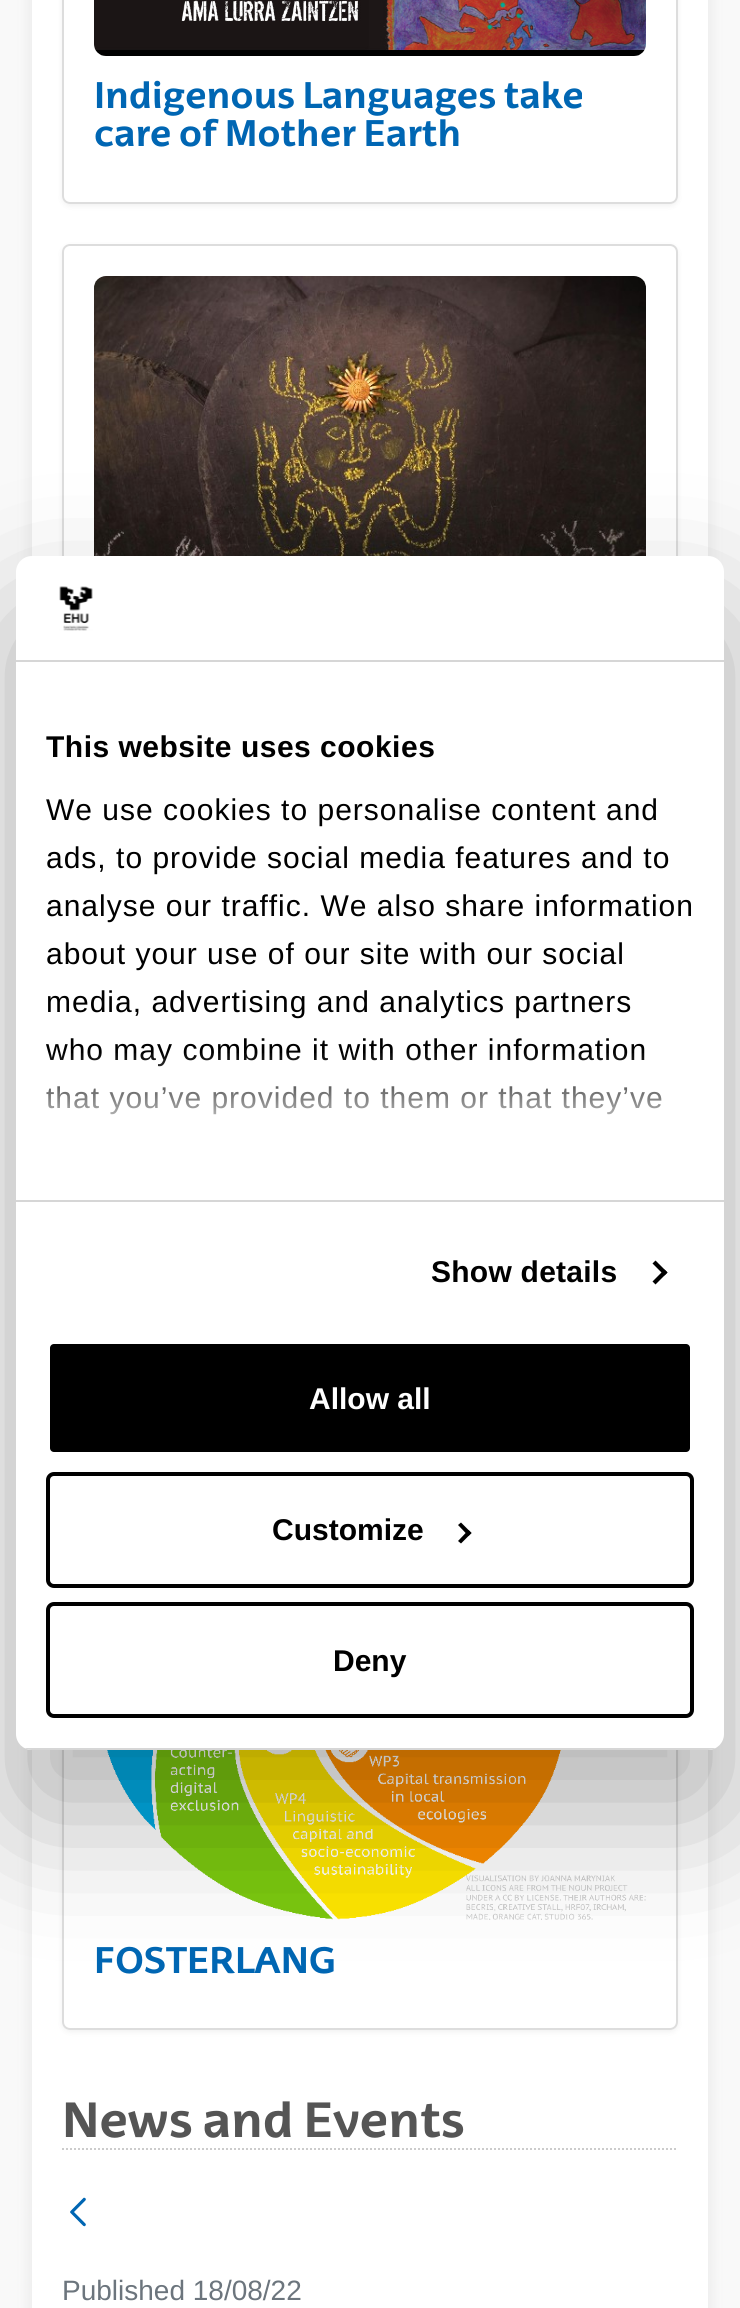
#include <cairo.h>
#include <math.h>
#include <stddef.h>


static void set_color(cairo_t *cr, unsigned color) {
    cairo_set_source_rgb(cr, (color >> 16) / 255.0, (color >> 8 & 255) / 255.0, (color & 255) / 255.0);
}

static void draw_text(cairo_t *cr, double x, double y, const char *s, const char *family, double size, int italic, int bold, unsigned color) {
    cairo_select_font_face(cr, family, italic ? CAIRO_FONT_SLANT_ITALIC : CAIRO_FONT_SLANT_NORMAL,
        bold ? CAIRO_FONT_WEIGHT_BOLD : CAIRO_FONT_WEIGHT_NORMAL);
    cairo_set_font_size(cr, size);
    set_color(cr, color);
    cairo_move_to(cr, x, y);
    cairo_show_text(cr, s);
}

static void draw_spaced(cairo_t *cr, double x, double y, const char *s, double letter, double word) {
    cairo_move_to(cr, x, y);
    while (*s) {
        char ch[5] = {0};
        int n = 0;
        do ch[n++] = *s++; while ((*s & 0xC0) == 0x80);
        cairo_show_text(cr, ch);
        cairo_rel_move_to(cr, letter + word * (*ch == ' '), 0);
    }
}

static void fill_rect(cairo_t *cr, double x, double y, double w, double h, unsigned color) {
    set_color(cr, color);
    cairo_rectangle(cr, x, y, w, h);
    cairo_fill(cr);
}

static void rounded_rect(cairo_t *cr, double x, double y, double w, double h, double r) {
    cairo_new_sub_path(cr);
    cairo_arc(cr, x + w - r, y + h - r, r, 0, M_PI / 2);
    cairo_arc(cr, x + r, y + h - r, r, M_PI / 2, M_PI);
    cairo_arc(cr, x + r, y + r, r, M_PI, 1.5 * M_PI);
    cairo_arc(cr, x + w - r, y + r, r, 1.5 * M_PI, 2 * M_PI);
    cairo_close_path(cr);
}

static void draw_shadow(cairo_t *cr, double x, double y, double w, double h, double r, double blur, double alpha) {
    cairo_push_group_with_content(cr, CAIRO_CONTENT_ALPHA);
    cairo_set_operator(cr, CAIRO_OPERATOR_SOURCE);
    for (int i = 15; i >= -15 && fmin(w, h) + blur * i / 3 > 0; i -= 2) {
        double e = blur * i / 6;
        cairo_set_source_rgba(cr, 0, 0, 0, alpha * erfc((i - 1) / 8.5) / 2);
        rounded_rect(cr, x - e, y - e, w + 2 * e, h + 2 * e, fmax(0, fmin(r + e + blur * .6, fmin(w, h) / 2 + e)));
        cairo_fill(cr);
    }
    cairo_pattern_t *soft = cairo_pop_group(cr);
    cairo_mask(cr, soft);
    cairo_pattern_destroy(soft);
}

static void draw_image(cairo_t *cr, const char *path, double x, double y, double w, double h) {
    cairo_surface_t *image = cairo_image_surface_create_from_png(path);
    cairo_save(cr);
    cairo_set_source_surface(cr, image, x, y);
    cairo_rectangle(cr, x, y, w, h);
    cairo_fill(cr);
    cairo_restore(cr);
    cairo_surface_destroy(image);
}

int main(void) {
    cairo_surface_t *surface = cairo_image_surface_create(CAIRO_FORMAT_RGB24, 740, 2308);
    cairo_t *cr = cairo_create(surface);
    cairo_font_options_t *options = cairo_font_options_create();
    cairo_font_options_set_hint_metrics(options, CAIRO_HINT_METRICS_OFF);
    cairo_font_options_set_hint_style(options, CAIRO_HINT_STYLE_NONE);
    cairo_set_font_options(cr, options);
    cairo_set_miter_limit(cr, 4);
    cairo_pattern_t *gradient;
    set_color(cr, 0xF9F9F9);
    cairo_paint(cr);
    set_color(cr, 0xEFEFEF);
    draw_shadow(cr, 26, -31, 688, 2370, 16, 5, 1);
    fill_rect(cr, 32, 0, 676, 2308, 0xFFFFFF);
    cairo_save(cr);
    cairo_set_fill_rule(cr, CAIRO_FILL_RULE_EVEN_ODD);
    cairo_new_path(cr);
    cairo_move_to(cr, 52, 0);
    cairo_line_to(cr, 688, 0);
    cairo_line_to(cr, 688, 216);
    cairo_line_to(cr, 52, 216);
    cairo_close_path(cr);
    cairo_move_to(cr, 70, -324);
    cairo_line_to(cr, 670, -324);
    cairo_curve_to(cr, 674.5, -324, 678, -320.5, 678, -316);
    cairo_line_to(cr, 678, 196);
    cairo_curve_to(cr, 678, 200.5, 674.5, 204, 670, 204);
    cairo_line_to(cr, 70, 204);
    cairo_curve_to(cr, 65.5, 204, 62, 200.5, 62, 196);
    cairo_line_to(cr, 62, -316);
    cairo_curve_to(cr, 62, -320.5, 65.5, -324, 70, -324);
    cairo_close_path(cr);
    cairo_clip(cr);
    set_color(cr, 0x000000);
    draw_shadow(cr, 62, -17, 616, 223, 8, 3, 0.06);
    cairo_restore(cr);
    rounded_rect(cr, 63, -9, 614, 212, 7);
    set_color(cr, 0xDDDDDD);
    cairo_stroke(cr);
    draw_image(cr, "assets/img1.png", 94, 0, 552, 56);
    draw_text(cr, 94, 108, "Indigenous Languages take", "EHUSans", 36, 0, 1, 0x0066B3);
    draw_text(cr, 94, 146, "care of Mother Earth", "EHUSans", 36, 0, 1, 0x0066B3);
    cairo_save(cr);
    cairo_set_fill_rule(cr, CAIRO_FILL_RULE_EVEN_ODD);
    cairo_new_path(cr);
    cairo_move_to(cr, 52, 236);
    cairo_line_to(cr, 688, 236);
    cairo_line_to(cr, 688, 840);
    cairo_line_to(cr, 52, 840);
    cairo_close_path(cr);
    cairo_move_to(cr, 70, 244);
    cairo_line_to(cr, 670, 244);
    cairo_curve_to(cr, 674.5, 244, 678, 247.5, 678, 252);
    cairo_line_to(cr, 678, 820);
    cairo_curve_to(cr, 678, 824.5, 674.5, 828, 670, 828);
    cairo_line_to(cr, 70, 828);
    cairo_curve_to(cr, 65.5, 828, 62, 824.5, 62, 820);
    cairo_line_to(cr, 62, 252);
    cairo_curve_to(cr, 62, 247.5, 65.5, 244, 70, 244);
    cairo_close_path(cr);
    cairo_clip(cr);
    set_color(cr, 0x000000);
    draw_shadow(cr, 62, 246, 616, 584, 8, 3, 0.06);
    cairo_restore(cr);
    rounded_rect(cr, 63, 245, 614, 582, 7);
    set_color(cr, 0xDDDDDD);
    cairo_stroke(cr);
    draw_image(cr, "assets/img2.png", 94, 276, 552, 280);
    cairo_save(cr);
    cairo_set_fill_rule(cr, CAIRO_FILL_RULE_EVEN_ODD);
    cairo_new_path(cr);
    cairo_move_to(cr, 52, 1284);
    cairo_line_to(cr, 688, 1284);
    cairo_line_to(cr, 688, 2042);
    cairo_line_to(cr, 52, 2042);
    cairo_close_path(cr);
    cairo_move_to(cr, 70, 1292);
    cairo_line_to(cr, 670, 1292);
    cairo_curve_to(cr, 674.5, 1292, 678, 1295.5, 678, 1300);
    cairo_line_to(cr, 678, 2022);
    cairo_curve_to(cr, 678, 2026.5, 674.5, 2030, 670, 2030);
    cairo_line_to(cr, 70, 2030);
    cairo_curve_to(cr, 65.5, 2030, 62, 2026.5, 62, 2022);
    cairo_line_to(cr, 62, 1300);
    cairo_curve_to(cr, 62, 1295.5, 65.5, 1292, 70, 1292);
    cairo_close_path(cr);
    cairo_clip(cr);
    set_color(cr, 0x000000);
    draw_shadow(cr, 62, 1294, 616, 738, 8, 3, 0.06);
    cairo_restore(cr);
    rounded_rect(cr, 63, 1293, 614, 736, 7);
    cairo_stroke(cr);
    draw_image(cr, "assets/img3.png", 97, 1750, 549, 170);
    draw_text(cr, 94, 1973, "FOSTERLANG", "EHUSans", 36, 0, 1, 0x0066B3);
    cairo_new_path(cr);
    cairo_move_to(cr, 62, 2149);
    cairo_line_to(cr, 678, 2149);
    set_color(cr, 0xCCCCCC);
    cairo_set_dash(cr, (double[]){2, 2}, 2, 0);
    cairo_stroke(cr);
    draw_text(cr, 62, 2137, "News and Events", "EHUSans", 48, 0, 1, 0x555555);
    draw_image(cr, "assets/img4.png", 70, 2197, 16, 30);
    draw_text(cr, 62, 2300, "Published 18/08/22", "Liberation Sans", 28, 0, 0, 0x6C757D);
    set_color(cr, 0x000000);
    draw_shadow(cr, 16, 620, 708, 1194, 16, 68, 0.3);
    set_color(cr, 0xFFFFFF);
    rounded_rect(cr, 16, 556, 708, 1194, 16);
    cairo_fill(cr);
    fill_rect(cr, 16, 660, 708, 2, 0xD6D6D6);
    draw_image(cr, "assets/img5.png", 59, 586, 34, 45);
    fill_rect(cr, 16, 1200, 708, 2, 0xD6D6D6);
    cairo_select_font_face(cr, "Liberation Sans", CAIRO_FONT_SLANT_NORMAL, CAIRO_FONT_WEIGHT_BOLD);
    cairo_set_font_size(cr, 30);
    set_color(cr, 0x000000);
    draw_spaced(cr, 46, 757, "This website uses cookies", 0.5, 0);
    cairo_select_font_face(cr, "Liberation Sans", CAIRO_FONT_SLANT_NORMAL, CAIRO_FONT_WEIGHT_NORMAL);
    draw_spaced(cr, 46, 820, "We use cookies to personalise content and", 1, 0);
    draw_spaced(cr, 46, 868, "ads, to provide social media features and to", 1, 0);
    draw_spaced(cr, 46, 916, "analyse our traffic. We also share information", 1, 0);
    draw_spaced(cr, 46, 964, "about your use of our site with our social", 1, 0);
    draw_spaced(cr, 46, 1012, "media, advertising and analytics partners", 1, 0);
    draw_spaced(cr, 46, 1060, "who may combine it with other information", 1, 0);
    draw_spaced(cr, 46, 1108, "that you’ve provided to them or that they’ve", 1, 0);
    gradient = cairo_pattern_create_linear(357, 1201, 357, 1051);
    cairo_pattern_add_color_stop_rgba(gradient, 0, 1, 1, 1, 1);
    cairo_pattern_add_color_stop_rgba(gradient, 0.5, 1, 1, 1, 0.8);
    cairo_pattern_add_color_stop_rgba(gradient, 1, 1, 1, 1, 0);
    cairo_set_source(cr, gradient);
    cairo_pattern_destroy(gradient);
    cairo_rectangle(cr, 46, 1053, 616, 62);
    cairo_fill(cr);
    cairo_select_font_face(cr, "Liberation Sans", CAIRO_FONT_SLANT_NORMAL, CAIRO_FONT_WEIGHT_BOLD);
    set_color(cr, 0x000000);
    draw_spaced(cr, 431, 1282, "Show details", 0.25, 0);
    cairo_new_path(cr);
    cairo_move_to(cr, 655.5, 1260.5);
    cairo_line_to(cr, 667.5, 1272.5);
    cairo_line_to(cr, 664.5, 1275.5);
    cairo_line_to(cr, 652.5, 1263.5);
    cairo_close_path(cr);
    cairo_fill(cr);
    cairo_new_path(cr);
    cairo_move_to(cr, 664.5, 1269.5);
    cairo_line_to(cr, 667.5, 1272.5);
    cairo_line_to(cr, 655.5, 1284.5);
    cairo_line_to(cr, 652.5, 1281.5);
    cairo_close_path(cr);
    cairo_fill(cr);
    cairo_save(cr);
    rounded_rect(cr, 16, 556, 708, 1194, 16);
    cairo_clip(cr);
    fill_rect(cr, 16, 1748, 708, 2, 0xD6D6D6);
    cairo_restore(cr);
    rounded_rect(cr, 48, 1342, 644, 112, 6);
    cairo_fill_preserve(cr);
    set_color(cr, 0xFFFFFF);
    cairo_set_line_width(cr, 4);
    cairo_set_dash(cr, NULL, 0, 0);
    cairo_stroke(cr);
    draw_text(cr, 309, 1409, "Allow all", "Liberation Sans", 30, 0, 1, 0xFFFFFF);
    rounded_rect(cr, 48, 1474, 644, 112, 6);
    set_color(cr, 0x000000);
    cairo_stroke(cr);
    draw_text(cr, 272, 1540, "Customize", "Liberation Sans", 30, 0, 1, 0x000000);
    cairo_new_path(cr);
    cairo_move_to(cr, 461, 1522.5);
    cairo_line_to(cr, 471.5, 1533);
    cairo_line_to(cr, 468.5, 1536);
    cairo_line_to(cr, 458, 1525);
    cairo_close_path(cr);
    cairo_fill(cr);
    cairo_new_path(cr);
    cairo_move_to(cr, 468.5, 1530);
    cairo_line_to(cr, 471.5, 1533);
    cairo_line_to(cr, 461, 1543.5);
    cairo_line_to(cr, 458, 1541);
    cairo_close_path(cr);
    cairo_fill(cr);
    rounded_rect(cr, 48, 1604, 644, 112, 6);
    cairo_stroke(cr);
    draw_text(cr, 333, 1671, "Deny", "Liberation Sans", 30, 0, 1, 0x000000);
    cairo_surface_write_to_png(surface, "output.png");
    cairo_font_options_destroy(options);
    cairo_destroy(cr);
    cairo_surface_destroy(surface);
    return 0;
}
